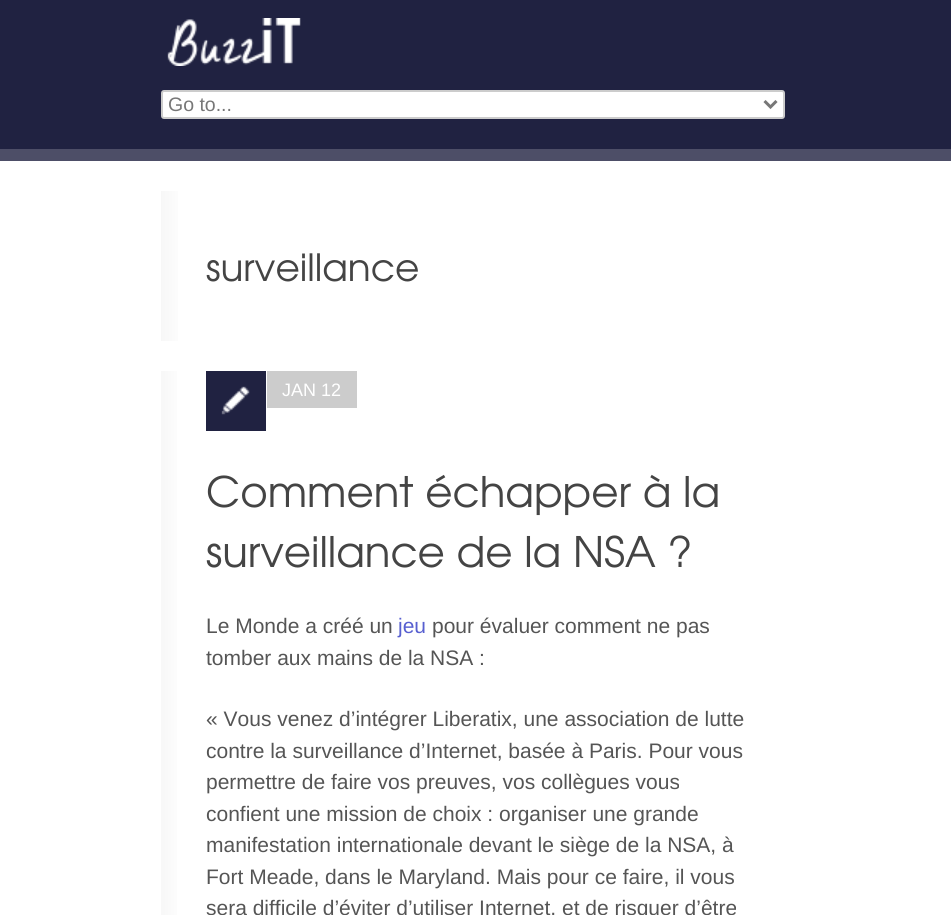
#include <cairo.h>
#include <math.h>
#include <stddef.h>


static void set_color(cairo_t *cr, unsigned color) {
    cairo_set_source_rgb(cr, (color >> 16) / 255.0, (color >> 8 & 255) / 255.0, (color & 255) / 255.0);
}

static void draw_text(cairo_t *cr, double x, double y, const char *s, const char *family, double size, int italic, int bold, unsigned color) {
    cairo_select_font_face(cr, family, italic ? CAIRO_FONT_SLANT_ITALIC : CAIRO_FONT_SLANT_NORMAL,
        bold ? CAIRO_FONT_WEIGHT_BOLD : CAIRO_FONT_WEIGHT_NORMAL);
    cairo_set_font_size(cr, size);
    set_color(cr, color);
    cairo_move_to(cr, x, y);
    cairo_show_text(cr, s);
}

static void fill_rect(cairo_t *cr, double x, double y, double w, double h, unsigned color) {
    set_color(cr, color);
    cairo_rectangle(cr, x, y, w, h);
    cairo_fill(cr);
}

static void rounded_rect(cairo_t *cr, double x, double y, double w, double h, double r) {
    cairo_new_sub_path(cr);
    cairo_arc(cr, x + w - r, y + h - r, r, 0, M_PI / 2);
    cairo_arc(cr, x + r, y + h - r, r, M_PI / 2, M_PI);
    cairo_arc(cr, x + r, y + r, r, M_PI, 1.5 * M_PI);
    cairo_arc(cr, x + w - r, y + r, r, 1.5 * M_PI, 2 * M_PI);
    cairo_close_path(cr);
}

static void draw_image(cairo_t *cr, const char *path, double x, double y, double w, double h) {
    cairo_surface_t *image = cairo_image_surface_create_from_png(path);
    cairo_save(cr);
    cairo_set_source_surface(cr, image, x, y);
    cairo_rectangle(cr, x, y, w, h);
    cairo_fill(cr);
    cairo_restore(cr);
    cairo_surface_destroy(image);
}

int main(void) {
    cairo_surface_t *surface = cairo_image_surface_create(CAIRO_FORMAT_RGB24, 951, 915);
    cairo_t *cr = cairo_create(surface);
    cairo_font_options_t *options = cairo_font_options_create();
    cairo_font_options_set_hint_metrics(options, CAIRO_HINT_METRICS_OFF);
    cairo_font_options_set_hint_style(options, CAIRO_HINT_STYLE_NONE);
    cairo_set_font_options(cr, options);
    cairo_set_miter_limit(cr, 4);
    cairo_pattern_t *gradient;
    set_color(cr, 0xFFFFFF);
    cairo_paint(cr);
    fill_rect(cr, 0, 149, 951, 12, 0x4D4E67);
    fill_rect(cr, 0, 0, 951, 149, 0x202241);
    draw_image(cr, "assets/img1.png", 167, 18, 134, 48);
    set_color(cr, 0xFFFFFF);
    rounded_rect(cr, 162, 91, 622, 27, 2);
    cairo_fill_preserve(cr);
    set_color(cr, 0xCCCCCC);
    cairo_stroke(cr);
    cairo_new_path(cr);
    cairo_move_to(cr, 764.5, 101);
    cairo_line_to(cr, 770.5, 107);
    cairo_line_to(cr, 776.5, 101);
    set_color(cr, 0x777777);
    cairo_set_line_width(cr, 3);
    cairo_stroke(cr);
    draw_text(cr, 168, 111, "Go to...", "Liberation Sans", 19.5, 0, 0, 0x777777);
    gradient = cairo_pattern_create_linear(161, 266, 791, 266);
    cairo_pattern_add_color_stop_rgba(gradient, 0, 0.969, 0.969, 0.969, 1);
    cairo_pattern_add_color_stop_rgba(gradient, 0.04, 1, 1, 1, 1);
    cairo_pattern_add_color_stop_rgba(gradient, 1, 1, 1, 1, 1);
    cairo_set_source(cr, gradient);
    cairo_pattern_destroy(gradient);
    cairo_rectangle(cr, 161, 191, 17, 150);
    cairo_fill(cr);
    draw_text(cr, 206, 281, "surveillance", "TeX Gyre Adventor", 37.5, 0, 0, 0x444444);
    gradient = cairo_pattern_create_linear(160, 748, 791, 748);
    cairo_pattern_add_color_stop_rgba(gradient, 0, 0.969, 0.969, 0.969, 1);
    cairo_pattern_add_color_stop_rgba(gradient, 0.04, 1, 1, 1, 1);
    cairo_pattern_add_color_stop_rgba(gradient, 1, 1, 1, 1, 1);
    cairo_set_source(cr, gradient);
    cairo_pattern_destroy(gradient);
    cairo_rectangle(cr, 161, 371, 16, 544);
    cairo_fill(cr);
    fill_rect(cr, 206, 371, 60, 60, 0x202241);
    draw_image(cr, "assets/img2.png", 221, 386, 29, 29);
    fill_rect(cr, 267, 371, 90, 37, 0xCCCCCC);
    draw_text(cr, 282, 396, "JAN 12", "Liberation Sans", 18, 0, 0, 0xFFFFFF);
    draw_text(cr, 206, 507, "Comment échapper à la", "TeX Gyre Adventor", 42, 0, 0, 0x444444);
    draw_text(cr, 206, 567, "surveillance de la NSA ?", "TeX Gyre Adventor", 42, 0, 0, 0x444444);
    draw_text(cr, 206, 633, "Le Monde a créé un", "Liberation Sans", 21, 0, 0, 0x555555);
    draw_text(cr, 398, 633, "jeu", "Liberation Sans", 21, 0, 0, 0x575FD0);
    draw_text(cr, 432, 633, "pour évaluer comment ne pas", "Liberation Sans", 21, 0, 0, 0x555555);
    draw_text(cr, 206, 665, "tomber aux mains de la NSA :", "Liberation Sans", 21, 0, 0, 0x555555);
    draw_text(cr, 206, 726, "« Vous venez d’intégrer Liberatix, une association de lutte", "Liberation Sans", 21, 0, 0, 0x555555);
    draw_text(cr, 206, 758, "contre la surveillance d’Internet, basée à Paris. Pour vous", "Liberation Sans", 21, 0, 0, 0x555555);
    draw_text(cr, 206, 789, "permettre de faire vos preuves, vos collègues vous", "Liberation Sans", 21, 0, 0, 0x555555);
    draw_text(cr, 206, 821, "confient une mission de choix : organiser une grande", "Liberation Sans", 21, 0, 0, 0x555555);
    draw_text(cr, 206, 852, "manifestation internationale devant le siège de la NSA, à", "Liberation Sans", 21, 0, 0, 0x555555);
    draw_text(cr, 206, 884, "Fort Meade, dans le Maryland. Mais pour ce faire, il vous", "Liberation Sans", 21, 0, 0, 0x555555);
    draw_text(cr, 206, 915, "sera difficile d’éviter d’utiliser Internet, et de risquer d’être", "Liberation Sans", 21, 0, 0, 0x555555);
    cairo_surface_write_to_png(surface, "output.png");
    cairo_font_options_destroy(options);
    cairo_destroy(cr);
    cairo_surface_destroy(surface);
    return 0;
}
